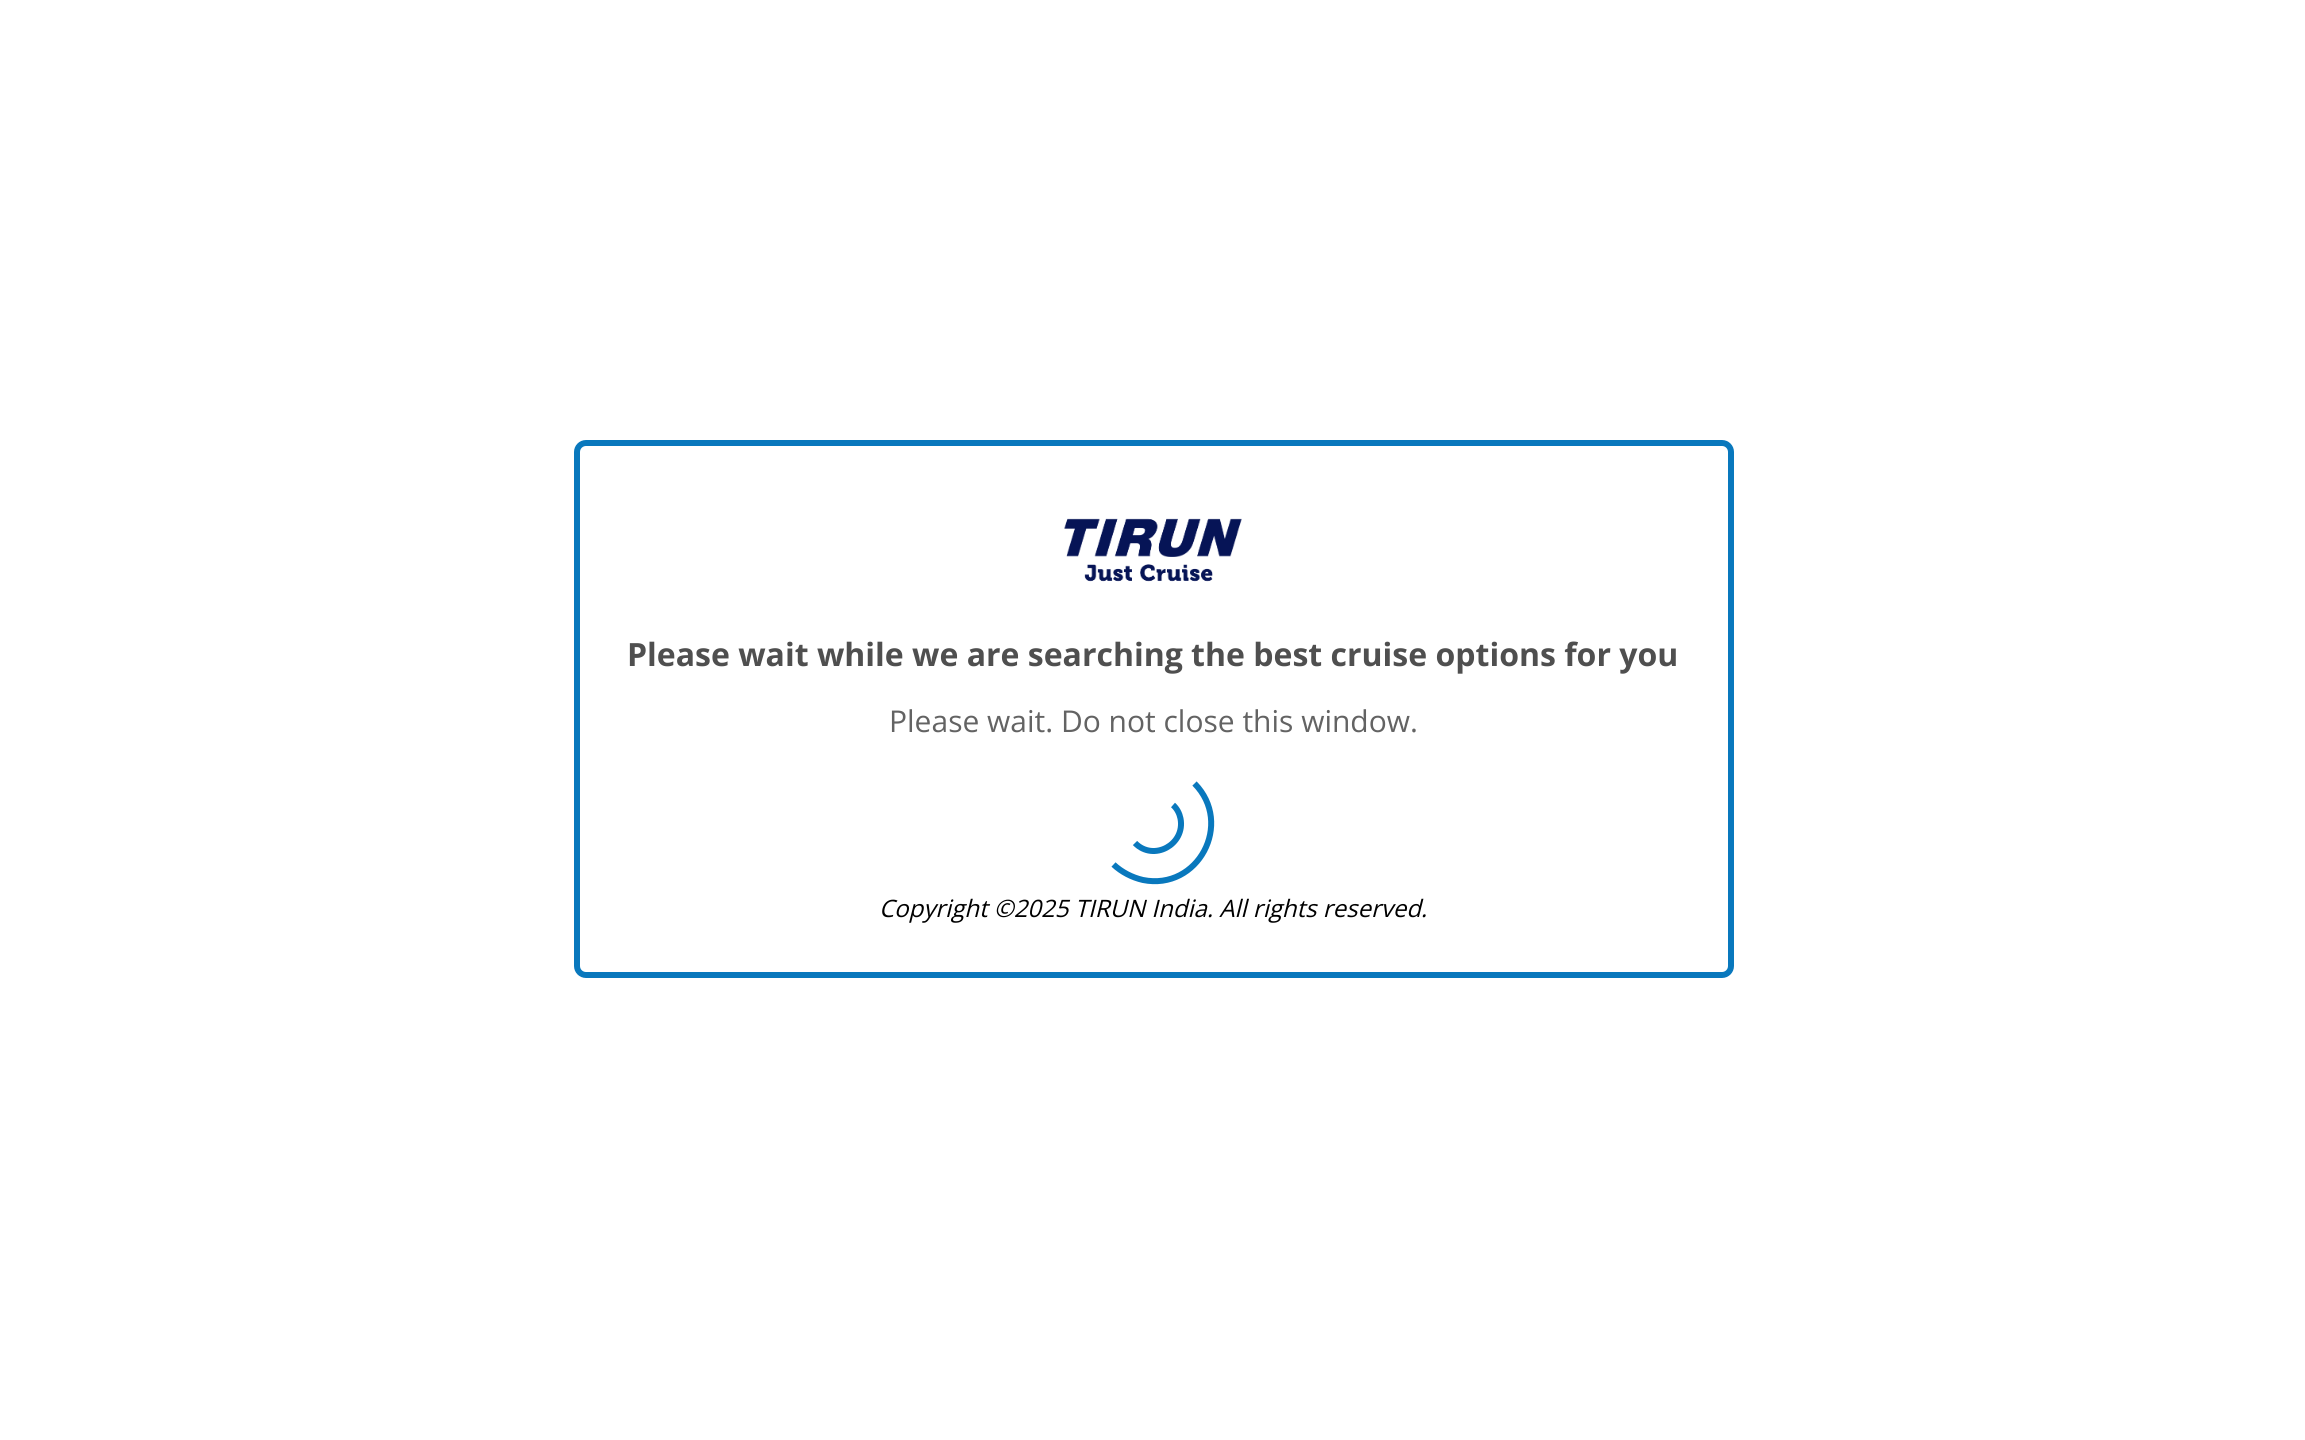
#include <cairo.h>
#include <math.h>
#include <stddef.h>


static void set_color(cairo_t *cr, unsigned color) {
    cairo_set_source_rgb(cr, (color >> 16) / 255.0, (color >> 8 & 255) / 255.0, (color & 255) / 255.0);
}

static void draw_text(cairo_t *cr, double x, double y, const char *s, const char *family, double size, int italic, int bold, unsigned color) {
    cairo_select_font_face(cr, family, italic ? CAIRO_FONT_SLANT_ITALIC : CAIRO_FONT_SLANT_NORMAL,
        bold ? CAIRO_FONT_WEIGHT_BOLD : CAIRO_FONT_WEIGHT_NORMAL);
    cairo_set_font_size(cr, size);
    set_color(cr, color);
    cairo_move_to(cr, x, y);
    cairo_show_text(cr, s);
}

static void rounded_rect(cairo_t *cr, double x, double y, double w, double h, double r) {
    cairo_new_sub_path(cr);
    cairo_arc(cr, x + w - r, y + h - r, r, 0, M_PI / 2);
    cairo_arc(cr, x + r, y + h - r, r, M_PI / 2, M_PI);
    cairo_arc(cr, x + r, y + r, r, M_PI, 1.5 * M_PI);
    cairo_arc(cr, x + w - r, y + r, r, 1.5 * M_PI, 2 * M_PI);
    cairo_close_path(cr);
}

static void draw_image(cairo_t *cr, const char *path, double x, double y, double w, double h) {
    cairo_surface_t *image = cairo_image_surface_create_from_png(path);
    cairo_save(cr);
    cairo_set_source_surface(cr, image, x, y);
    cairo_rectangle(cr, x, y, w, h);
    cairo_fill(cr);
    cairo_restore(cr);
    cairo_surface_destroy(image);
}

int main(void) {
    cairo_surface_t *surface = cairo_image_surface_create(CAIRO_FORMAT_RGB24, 2305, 1440);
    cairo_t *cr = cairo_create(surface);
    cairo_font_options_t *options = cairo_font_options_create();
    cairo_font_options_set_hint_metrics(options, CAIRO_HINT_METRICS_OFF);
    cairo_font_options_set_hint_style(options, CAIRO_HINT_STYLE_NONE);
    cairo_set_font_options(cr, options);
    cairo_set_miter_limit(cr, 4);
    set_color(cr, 0xFFFFFF);
    cairo_paint(cr);
    rounded_rect(cr, 577, 443, 1154, 532, 9);
    set_color(cr, 0x0978BD);
    cairo_set_line_width(cr, 6);
    cairo_stroke(cr);
    draw_image(cr, "assets/img1.png", 1064, 518, 178, 64);
    draw_text(cr, 627, 666, "Please wait while we are searching the best cruise options for you", "Open Sans", 32, 0, 1, 0x4F4F4F);
    draw_text(cr, 889, 732, "Please wait. Do not close this window.", "Open Sans", 30, 0, 0, 0x636363);
    cairo_new_path(cr);
    cairo_move_to(cr, 1194.5, 783.5);
    cairo_curve_to(cr, 1234, 823.5, 1198, 891, 1143, 880);
    cairo_curve_to(cr, 1132, 877.5, 1121.5, 872, 1113.5, 864.5);
    set_color(cr, 0x0978BD);
    cairo_stroke(cr);
    cairo_new_path(cr);
    cairo_move_to(cr, 1173, 805);
    cairo_curve_to(cr, 1177, 808.5, 1179.5, 813.5, 1180.5, 818.5);
    cairo_curve_to(cr, 1185.5, 844.5, 1153.5, 862, 1135, 843);
    cairo_stroke(cr);
    draw_text(cr, 879, 917, "Copyright ©2025 TIRUN India. All rights reserved.", "Open Sans", 24, 1, 0, 0x000000);
    cairo_surface_write_to_png(surface, "output.png");
    cairo_font_options_destroy(options);
    cairo_destroy(cr);
    cairo_surface_destroy(surface);
    return 0;
}
